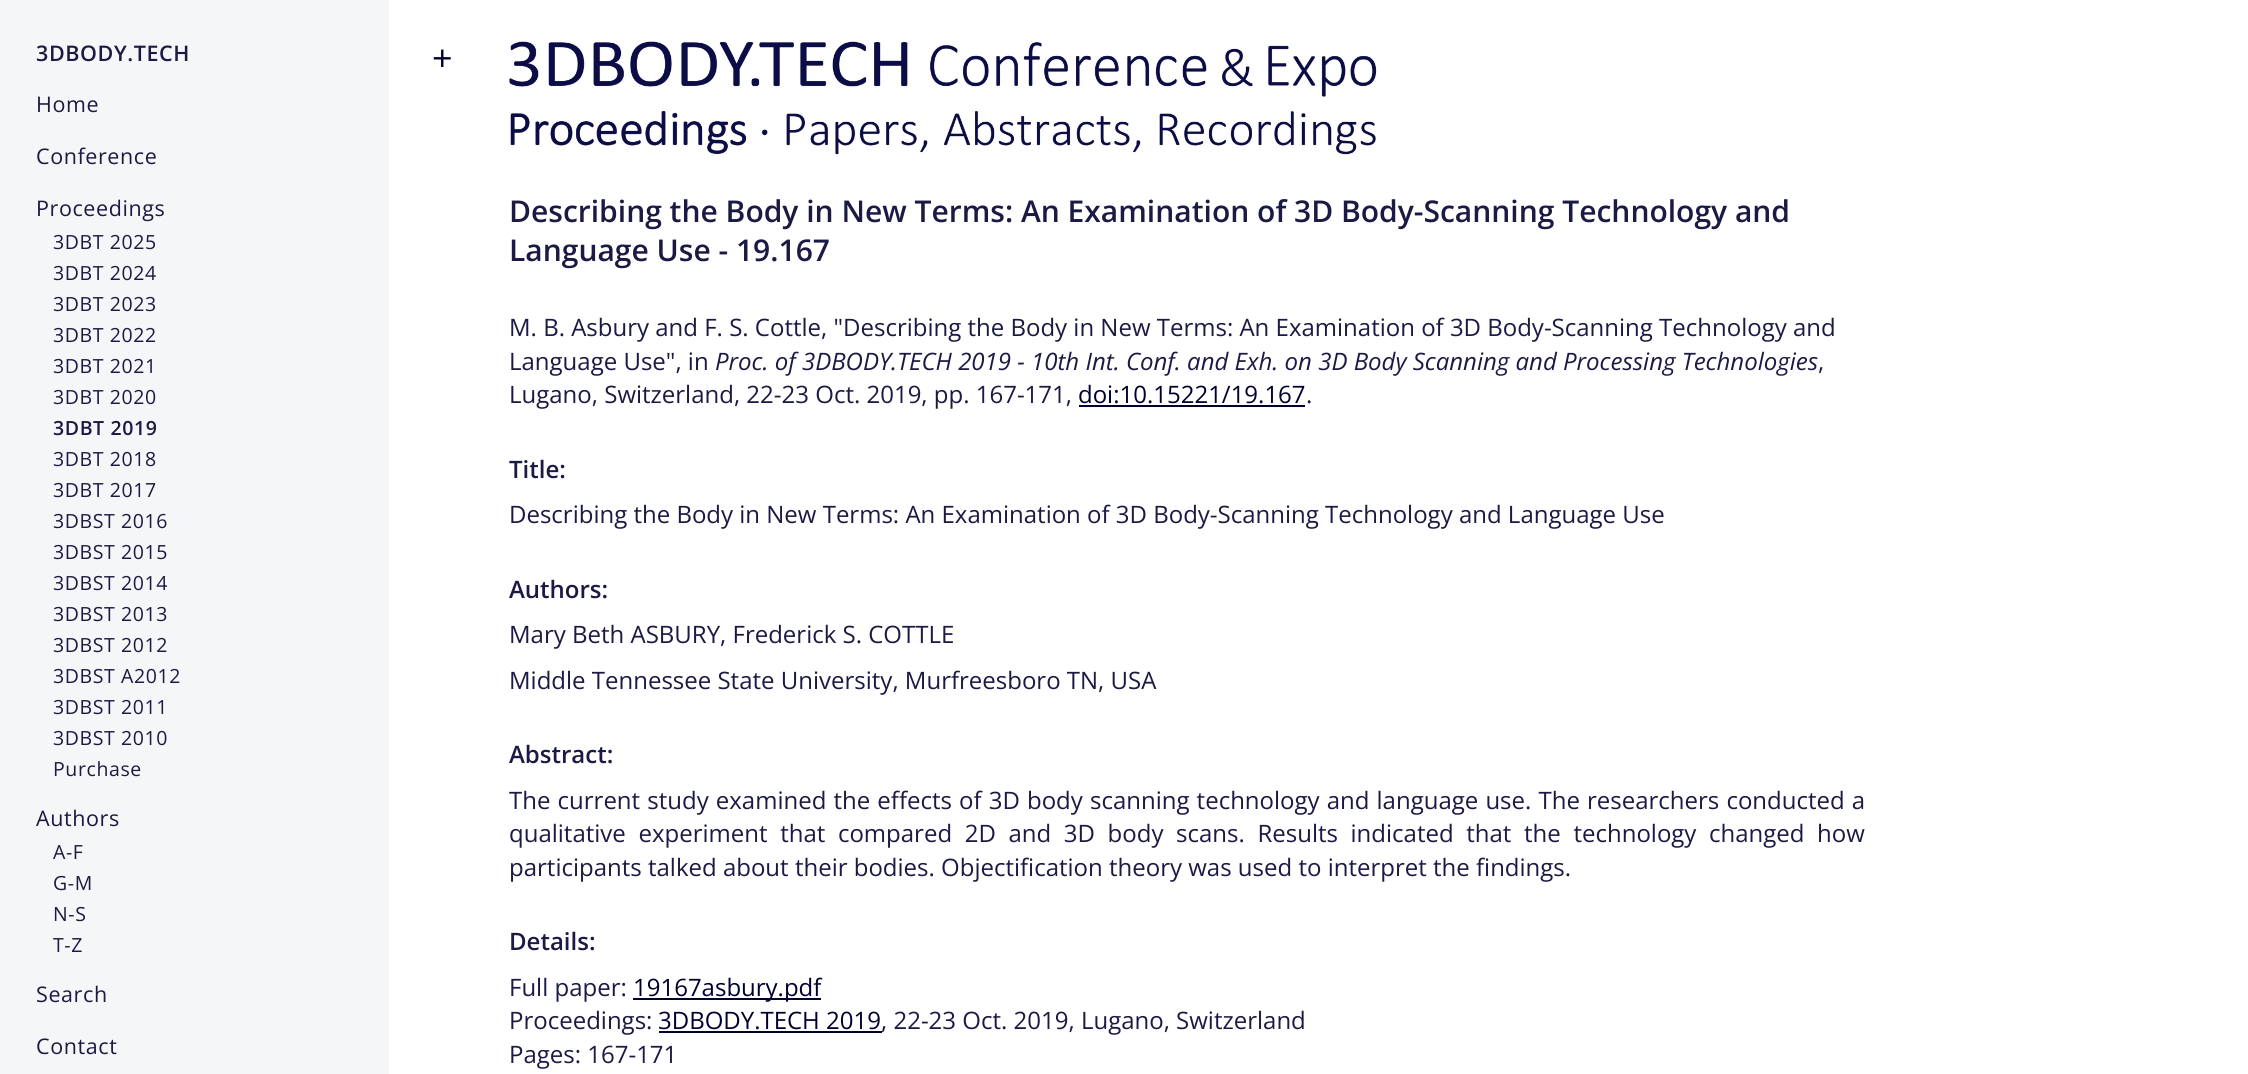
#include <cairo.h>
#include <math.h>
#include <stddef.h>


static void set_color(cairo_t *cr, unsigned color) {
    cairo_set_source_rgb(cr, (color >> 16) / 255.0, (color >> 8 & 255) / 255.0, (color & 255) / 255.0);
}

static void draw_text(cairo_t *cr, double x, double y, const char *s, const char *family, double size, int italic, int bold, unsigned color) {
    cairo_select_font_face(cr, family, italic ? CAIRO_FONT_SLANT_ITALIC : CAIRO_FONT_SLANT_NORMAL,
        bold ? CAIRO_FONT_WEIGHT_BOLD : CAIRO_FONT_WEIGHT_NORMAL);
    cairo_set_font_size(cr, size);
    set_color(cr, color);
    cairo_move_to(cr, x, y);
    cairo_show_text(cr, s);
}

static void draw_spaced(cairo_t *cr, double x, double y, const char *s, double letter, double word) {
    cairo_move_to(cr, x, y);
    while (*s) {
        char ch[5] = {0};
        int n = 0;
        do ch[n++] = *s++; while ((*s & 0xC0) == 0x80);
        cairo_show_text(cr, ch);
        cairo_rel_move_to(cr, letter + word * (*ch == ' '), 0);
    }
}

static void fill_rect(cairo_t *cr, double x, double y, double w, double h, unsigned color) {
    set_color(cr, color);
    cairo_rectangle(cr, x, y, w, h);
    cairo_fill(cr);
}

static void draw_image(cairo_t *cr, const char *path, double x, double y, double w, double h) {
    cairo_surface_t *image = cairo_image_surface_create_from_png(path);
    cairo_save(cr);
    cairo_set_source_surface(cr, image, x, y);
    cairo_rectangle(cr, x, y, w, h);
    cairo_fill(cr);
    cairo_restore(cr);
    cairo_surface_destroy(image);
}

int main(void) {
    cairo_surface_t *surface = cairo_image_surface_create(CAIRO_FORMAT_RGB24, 2248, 1074);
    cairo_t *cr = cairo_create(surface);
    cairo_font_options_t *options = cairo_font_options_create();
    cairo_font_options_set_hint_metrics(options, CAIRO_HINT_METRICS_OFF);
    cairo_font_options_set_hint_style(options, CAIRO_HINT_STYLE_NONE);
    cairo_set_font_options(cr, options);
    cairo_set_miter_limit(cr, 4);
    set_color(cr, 0xFFFFFF);
    cairo_paint(cr);
    fill_rect(cr, 0, 0, 389, 1074, 0xF5F6F7);
    cairo_select_font_face(cr, "Open Sans SemiBold", CAIRO_FONT_SLANT_NORMAL, CAIRO_FONT_WEIGHT_NORMAL);
    cairo_set_font_size(cr, 21.5);
    set_color(cr, 0x1B1A44);
    draw_spaced(cr, 36, 61, "3DBODY.TECH", 0.6, 0);
    cairo_select_font_face(cr, "Open Sans", CAIRO_FONT_SLANT_NORMAL, CAIRO_FONT_WEIGHT_NORMAL);
    draw_spaced(cr, 36, 112, "Home", 0.6, 0);
    draw_spaced(cr, 36, 164, "Conference", 0.6, 0);
    draw_spaced(cr, 36, 216, "Proceedings", 0.6, 0);
    cairo_set_font_size(cr, 19.5);
    draw_spaced(cr, 53, 249, "3DBT 2025", 0.6, 0);
    draw_spaced(cr, 53, 280, "3DBT 2024", 0.6, 0);
    draw_spaced(cr, 53, 311, "3DBT 2023", 0.6, 0);
    draw_spaced(cr, 53, 342, "3DBT 2022", 0.6, 0);
    draw_spaced(cr, 53, 373, "3DBT 2021", 0.6, 0);
    draw_spaced(cr, 53, 404, "3DBT 2020", 0.6, 0);
    cairo_select_font_face(cr, "Open Sans SemiBold", CAIRO_FONT_SLANT_NORMAL, CAIRO_FONT_WEIGHT_NORMAL);
    draw_spaced(cr, 53, 435, "3DBT 2019", 0.6, 0);
    cairo_select_font_face(cr, "Open Sans", CAIRO_FONT_SLANT_NORMAL, CAIRO_FONT_WEIGHT_NORMAL);
    draw_spaced(cr, 53, 466, "3DBT 2018", 0.6, 0);
    draw_spaced(cr, 53, 497, "3DBT 2017", 0.6, 0);
    draw_spaced(cr, 53, 528, "3DBST 2016", 0.6, 0);
    draw_spaced(cr, 53, 559, "3DBST 2015", 0.6, 0);
    draw_spaced(cr, 53, 590, "3DBST 2014", 0.6, 0);
    draw_spaced(cr, 53, 621, "3DBST 2013", 0.6, 0);
    draw_spaced(cr, 53, 652, "3DBST 2012", 0.6, 0);
    draw_spaced(cr, 53, 683, "3DBST A2012", 0.6, 0);
    draw_spaced(cr, 53, 714, "3DBST 2011", 0.6, 0);
    draw_spaced(cr, 53, 745, "3DBST 2010", 0.6, 0);
    draw_spaced(cr, 53, 776, "Purchase", 0.6, 0);
    cairo_set_font_size(cr, 21.5);
    draw_spaced(cr, 36, 826, "Authors", 0.6, 0);
    cairo_set_font_size(cr, 19.5);
    draw_spaced(cr, 53, 859, "A-F", 0.6, 0);
    draw_spaced(cr, 53, 890, "G-M", 0.6, 0);
    draw_spaced(cr, 53, 921, "N-S", 0.6, 0);
    draw_spaced(cr, 53, 952, "T-Z", 0.6, 0);
    cairo_set_font_size(cr, 21.5);
    draw_spaced(cr, 36, 1002, "Search", 0.6, 0);
    draw_spaced(cr, 36, 1054, "Contact", 0.6, 0);
    draw_text(cr, 432, 71, "+", "Open Sans", 36, 0, 0, 0x000030);
    draw_image(cr, "assets/img1.png", 509, 41, 868, 114);
    draw_text(cr, 509, 222, "Describing the Body in New Terms: An Examination of 3D Body-Scanning Technology and", "Open Sans SemiBold", 30, 0, 0, 0x1B1A44);
    draw_text(cr, 509, 261, "Language Use - 19.167", "Open Sans SemiBold", 30, 0, 0, 0x1B1A44);
    draw_text(cr, 509, 336, "M. B. Asbury and F. S. Cottle, \"Describing the Body in New Terms: An Examination of 3D Body-Scanning Technology and", "Open Sans", 24, 0, 0, 0x1B1A44);
    draw_text(cr, 509, 370, "Language Use\", in", "Open Sans", 24, 0, 0, 0x1B1A44);
    draw_text(cr, 715, 370, "Proc. of 3DBODY.TECH 2019 - 10th Int. Conf. and Exh. on 3D Body Scanning and Processing Technologies", "Open Sans", 24, 1, 0, 0x1B1A44);
    draw_text(cr, 1818, 370, ",", "Open Sans", 24, 0, 0, 0x1B1A44);
    draw_text(cr, 509, 403, "Lugano, Switzerland, 22-23 Oct. 2019, pp. 167-171,", "Open Sans", 24, 0, 0, 0x1B1A44);
    draw_text(cr, 1078, 403, "doi:10.15221/19.167", "Open Sans", 24, 0, 0, 0x000030);
    fill_rect(cr, 1079, 405, 226, 2, 0x000030);
    draw_text(cr, 1306, 403, ".", "Open Sans", 24, 0, 0, 0x1B1A44);
    draw_text(cr, 509, 478, "Title:", "Open Sans SemiBold", 24, 0, 0, 0x1B1A44);
    draw_text(cr, 509, 523, "Describing the Body in New Terms: An Examination of 3D Body-Scanning Technology and Language Use", "Open Sans", 24, 0, 0, 0x1B1A44);
    draw_text(cr, 509, 598, "Authors:", "Open Sans SemiBold", 24, 0, 0, 0x1B1A44);
    draw_text(cr, 509, 643, "Mary Beth ASBURY, Frederick S. COTTLE", "Open Sans", 24, 0, 0, 0x1B1A44);
    draw_text(cr, 509, 689, "Middle Tennessee State University, Murfreesboro TN, USA", "Open Sans", 24, 0, 0, 0x1B1A44);
    draw_text(cr, 509, 763, "Abstract:", "Open Sans SemiBold", 24, 0, 0, 0x1B1A44);
    cairo_select_font_face(cr, "Open Sans", CAIRO_FONT_SLANT_NORMAL, CAIRO_FONT_WEIGHT_NORMAL);
    draw_spaced(cr, 509, 809, "The current study examined the effects of 3D body scanning technology and language use. The researchers conducted a", 0, 0.9);
    draw_spaced(cr, 509, 842, "qualitative experiment that compared 2D and 3D body scans. Results indicated that the technology changed how", 0, 6.4);
    draw_text(cr, 509, 876, "participants talked about their bodies. Objectification theory was used to interpret the findings.", "Open Sans", 24, 0, 0, 0x1B1A44);
    draw_text(cr, 509, 950, "Details:", "Open Sans SemiBold", 24, 0, 0, 0x1B1A44);
    draw_text(cr, 509, 996, "Full paper:", "Open Sans", 24, 0, 0, 0x1B1A44);
    fill_rect(cr, 633, 998, 188, 2, 0x000030);
    draw_text(cr, 633, 996, "19167asbury.pdf", "Open Sans", 24, 0, 0, 0x000030);
    draw_text(cr, 509, 1029, "Proceedings:", "Open Sans", 24, 0, 0, 0x1B1A44);
    draw_text(cr, 658, 1029, "3DBODY.TECH 2019", "Open Sans", 24, 0, 0, 0x000030);
    fill_rect(cr, 659, 1031, 223, 2, 0x000030);
    draw_text(cr, 881, 1029, ", 22-23 Oct. 2019, Lugano, Switzerland", "Open Sans", 24, 0, 0, 0x1B1A44);
    draw_text(cr, 509, 1063, "Pages: 167-171", "Open Sans", 24, 0, 0, 0x1B1A44);
    cairo_surface_write_to_png(surface, "output.png");
    cairo_font_options_destroy(options);
    cairo_destroy(cr);
    cairo_surface_destroy(surface);
    return 0;
}
